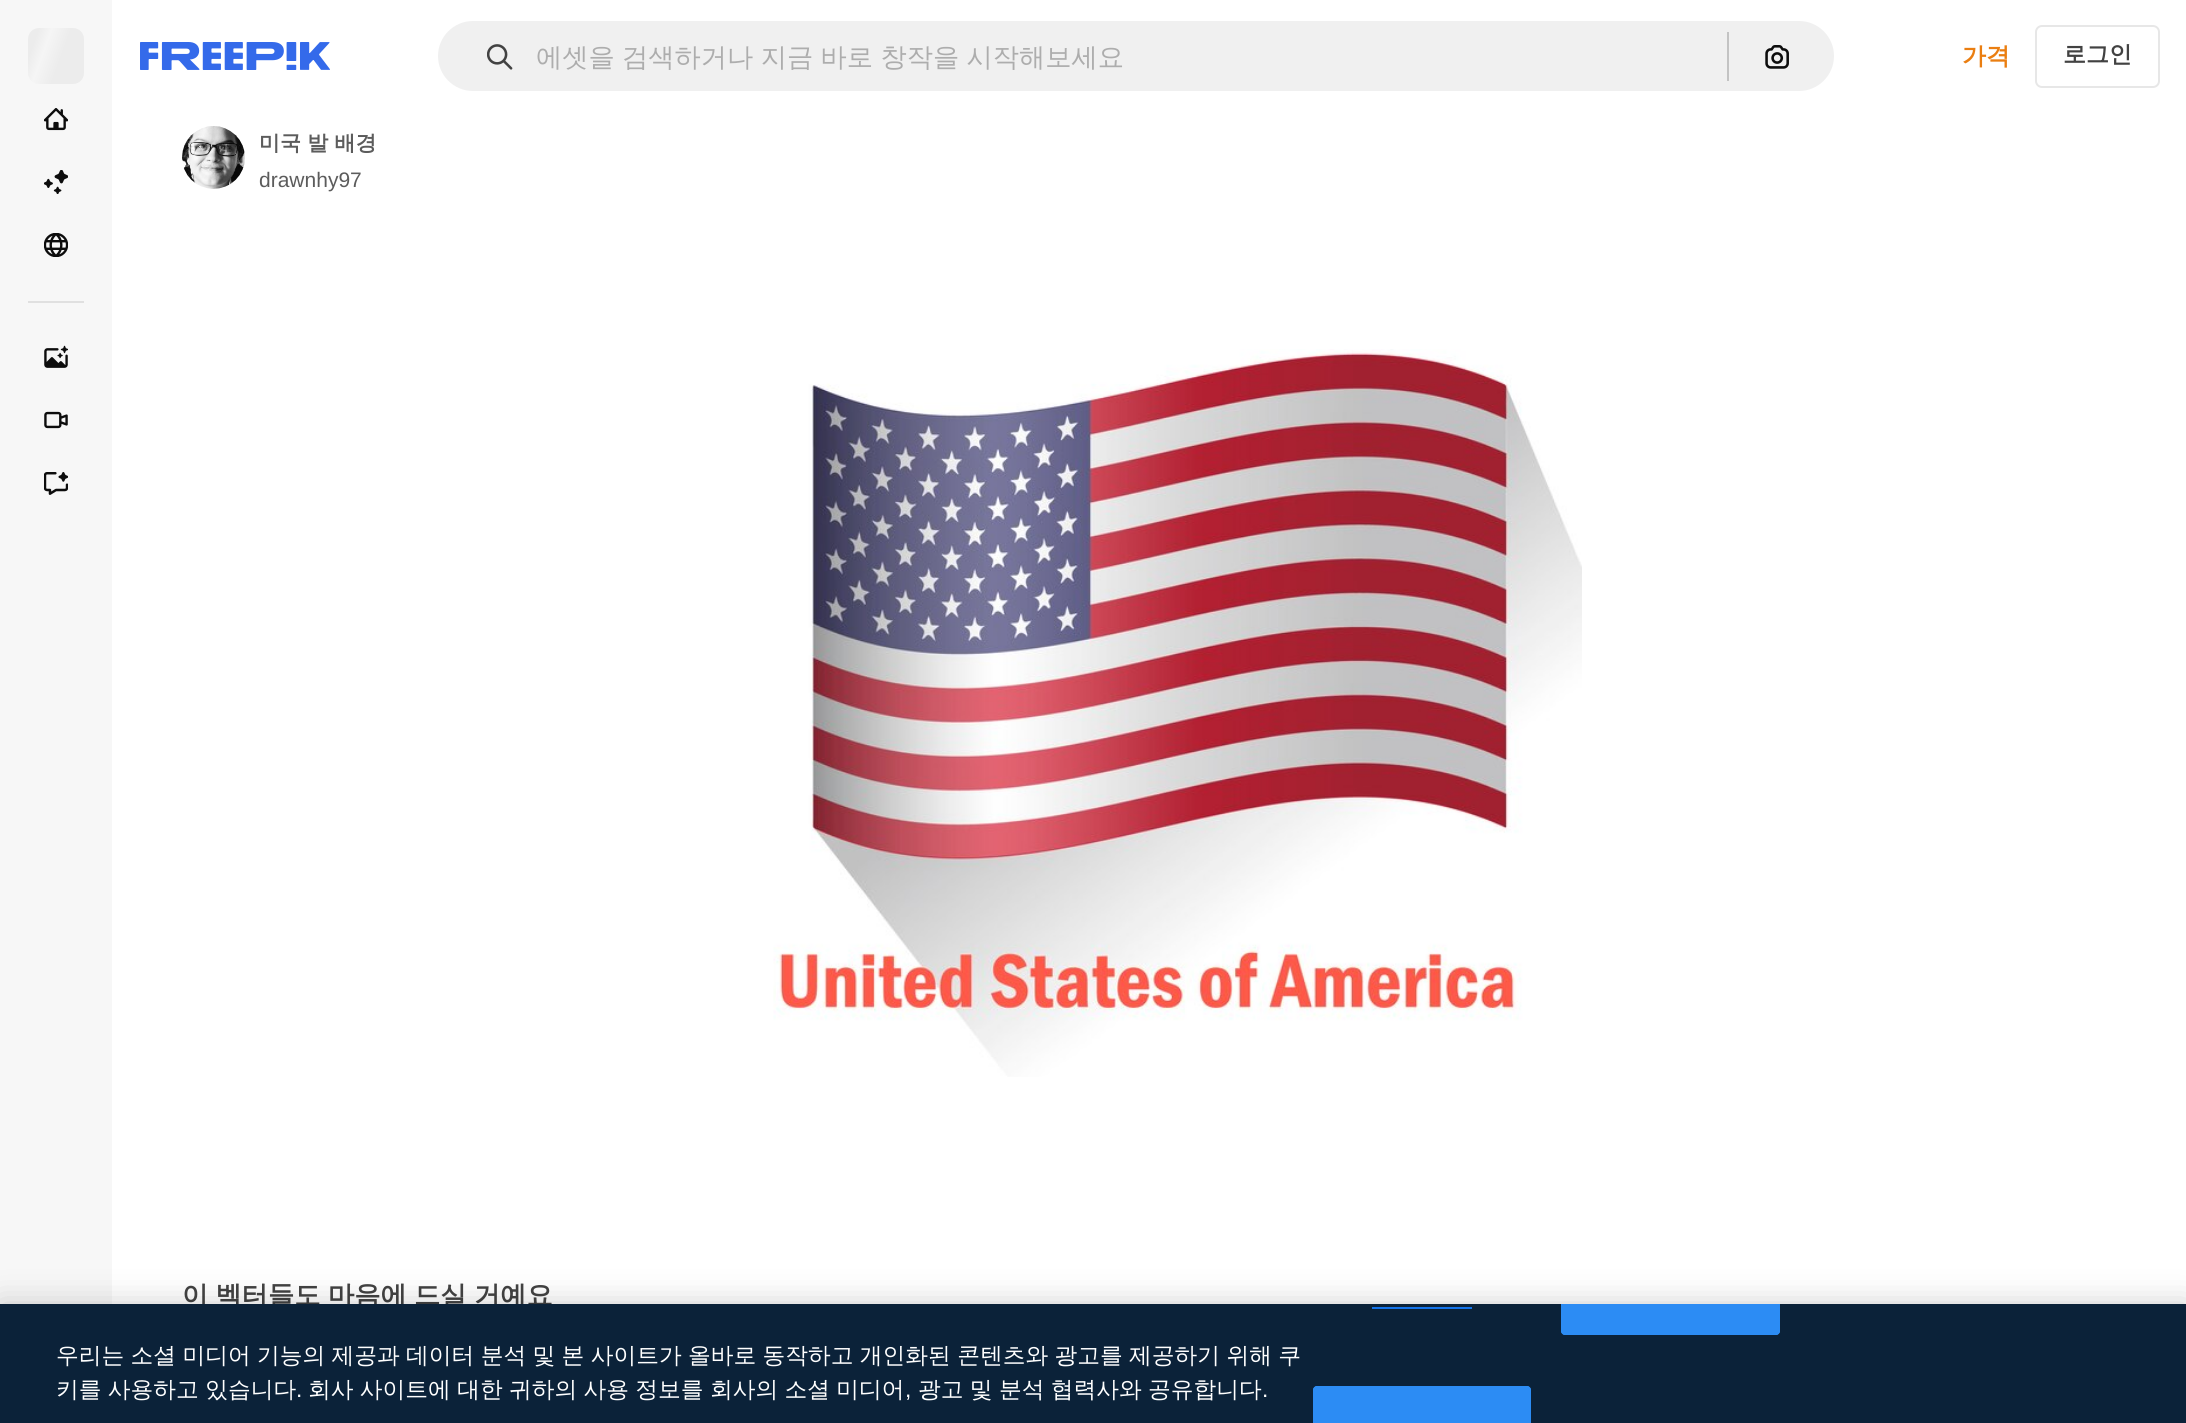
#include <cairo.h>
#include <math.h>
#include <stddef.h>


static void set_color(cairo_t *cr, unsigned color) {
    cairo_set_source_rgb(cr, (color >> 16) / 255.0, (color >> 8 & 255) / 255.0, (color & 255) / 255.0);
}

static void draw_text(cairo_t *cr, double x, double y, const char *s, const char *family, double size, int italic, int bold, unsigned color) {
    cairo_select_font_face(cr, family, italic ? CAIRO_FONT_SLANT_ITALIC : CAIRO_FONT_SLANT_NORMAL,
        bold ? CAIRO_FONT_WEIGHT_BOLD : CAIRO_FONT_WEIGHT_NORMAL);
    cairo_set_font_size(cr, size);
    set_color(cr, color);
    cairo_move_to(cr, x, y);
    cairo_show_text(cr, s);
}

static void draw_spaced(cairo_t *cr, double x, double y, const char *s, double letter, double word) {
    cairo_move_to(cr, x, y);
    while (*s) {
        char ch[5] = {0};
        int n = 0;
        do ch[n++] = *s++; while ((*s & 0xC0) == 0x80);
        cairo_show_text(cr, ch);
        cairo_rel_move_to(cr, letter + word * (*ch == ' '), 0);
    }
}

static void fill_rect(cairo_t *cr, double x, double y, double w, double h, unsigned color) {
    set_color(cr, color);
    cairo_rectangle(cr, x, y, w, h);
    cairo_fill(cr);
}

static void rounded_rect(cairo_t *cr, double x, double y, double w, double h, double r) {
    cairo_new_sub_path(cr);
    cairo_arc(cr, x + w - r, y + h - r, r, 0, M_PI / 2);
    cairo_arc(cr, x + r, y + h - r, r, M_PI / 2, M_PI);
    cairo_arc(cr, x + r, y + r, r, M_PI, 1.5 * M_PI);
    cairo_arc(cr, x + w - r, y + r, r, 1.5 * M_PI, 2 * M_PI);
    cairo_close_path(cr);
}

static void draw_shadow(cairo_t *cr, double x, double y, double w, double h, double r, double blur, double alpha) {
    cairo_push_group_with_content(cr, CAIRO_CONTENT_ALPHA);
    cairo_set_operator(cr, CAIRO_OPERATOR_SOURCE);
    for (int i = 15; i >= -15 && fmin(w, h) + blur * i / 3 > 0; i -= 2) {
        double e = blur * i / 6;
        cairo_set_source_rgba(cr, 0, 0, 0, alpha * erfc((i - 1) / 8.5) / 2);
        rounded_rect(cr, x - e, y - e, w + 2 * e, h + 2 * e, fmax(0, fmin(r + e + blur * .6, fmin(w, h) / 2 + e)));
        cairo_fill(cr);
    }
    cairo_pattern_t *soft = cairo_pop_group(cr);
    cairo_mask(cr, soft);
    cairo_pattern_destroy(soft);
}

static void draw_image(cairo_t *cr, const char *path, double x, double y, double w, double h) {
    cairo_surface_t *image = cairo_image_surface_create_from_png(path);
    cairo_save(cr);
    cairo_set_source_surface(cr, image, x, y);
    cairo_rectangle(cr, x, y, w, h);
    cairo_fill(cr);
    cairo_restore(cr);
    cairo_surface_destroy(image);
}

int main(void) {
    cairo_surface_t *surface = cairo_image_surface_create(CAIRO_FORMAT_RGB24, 2186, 1423);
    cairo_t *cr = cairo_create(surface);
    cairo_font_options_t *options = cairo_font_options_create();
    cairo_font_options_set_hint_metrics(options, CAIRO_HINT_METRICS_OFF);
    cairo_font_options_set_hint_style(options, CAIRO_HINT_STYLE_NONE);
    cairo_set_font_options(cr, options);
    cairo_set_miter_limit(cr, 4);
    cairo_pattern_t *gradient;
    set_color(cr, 0xFFFFFF);
    cairo_paint(cr);
    fill_rect(cr, 0, 0, 112, 1304, 0xF7F7F7);
    gradient = cairo_pattern_create_linear(26, 35, 142, 77);
    cairo_pattern_add_color_stop_rgba(gradient, 0.08, 0.925, 0.925, 0.925, 1);
    cairo_pattern_add_color_stop_rgba(gradient, 0.18, 0.961, 0.961, 0.961, 1);
    cairo_pattern_add_color_stop_rgba(gradient, 0.33, 0.925, 0.925, 0.925, 1);
    cairo_set_source(cr, gradient);
    cairo_pattern_destroy(gradient);
    rounded_rect(cr, 28, 28, 56, 56, 11);
    cairo_fill(cr);
    draw_image(cr, "assets/img1.png", 44, 108, 24, 23);
    draw_image(cr, "assets/img2.png", 44, 170, 24, 24);
    draw_image(cr, "assets/img3.png", 44, 233, 24, 24);
    fill_rect(cr, 28, 301, 56, 2, 0xE0E0E0);
    draw_image(cr, "assets/img4.png", 44, 345, 24, 23);
    draw_image(cr, "assets/img5.png", 44, 411, 24, 18);
    draw_image(cr, "assets/img6.png", 44, 472, 24, 23);
    draw_image(cr, "assets/img7.png", 140, 42, 190, 28);
    set_color(cr, 0xF0F0F0);
    rounded_rect(cr, 437, 20, 1398, 72, 36);
    cairo_fill_preserve(cr);
    set_color(cr, 0xFFFFFF);
    cairo_stroke(cr);
    draw_image(cr, "assets/img8.png", 487, 44, 26, 26);
    cairo_select_font_face(cr, "WenQuanYi Zen Hei Medium", CAIRO_FONT_SLANT_NORMAL, CAIRO_FONT_WEIGHT_NORMAL);
    cairo_set_font_size(cr, 26.25);
    set_color(cr, 0xADADAD);
    draw_spaced(cr, 536, 66, "에셋을 검색하거나 지금 바로 창작을 시작해보세요", 0, -0.5);
    fill_rect(cr, 1727, 32, 2, 49, 0xC3C3C3);
    draw_image(cr, "assets/img9.png", 1765, 45, 24, 24);
    draw_text(cr, 1962, 64, "가격", "WenQuanYi Zen Hei", 24, 0, 1, 0xEA7E11);
    rounded_rect(cr, 2036, 26, 123, 61, 6);
    set_color(cr, 0xE7E7E7);
    cairo_stroke(cr);
    draw_text(cr, 2063, 62, "로그인", "WenQuanYi Zen Hei", 23, 0, 1, 0x424242);
    draw_image(cr, "assets/img10.png", 182, 126, 63, 63);
    draw_text(cr, 259, 150, "미국 발 배경", "WenQuanYi Zen Hei", 21, 0, 1, 0x5C5C5C);
    draw_text(cr, 259, 187, "drawnhy97", "Liberation Sans", 21, 0, 0, 0x5C5C5C);
    draw_image(cr, "assets/img11.png", 773, 349, 809, 728);
    cairo_select_font_face(cr, "WenQuanYi Zen Hei", CAIRO_FONT_SLANT_NORMAL, CAIRO_FONT_WEIGHT_BOLD);
    cairo_set_font_size(cr, 26.25);
    set_color(cr, 0x424242);
    draw_spaced(cr, 182, 1304, "이 벡터들도 마음에 드실 거예요", 0, -0.5);
    set_color(cr, 0x000000);
    draw_shadow(cr, 0, 1304, 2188, 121, 0, 16, 0.2);
    fill_rect(cr, 0, 1304, 2186, 119, 0x0B2239);
    cairo_select_font_face(cr, "WenQuanYi Zen Hei Medium", CAIRO_FONT_SLANT_NORMAL, CAIRO_FONT_WEIGHT_NORMAL);
    cairo_set_font_size(cr, 22.75);
    set_color(cr, 0xFFFFFF);
    draw_spaced(cr, 56, 1363, "우리는 소셜 미디어 기능의 제공과 데이터 분석 및 본 사이트가 올바로 동작하고 개인화된 콘텐츠와 광고를 제공하기 위해 쿠", 0, -0.5);
    draw_spaced(cr, 56, 1397, "키를 사용하고 있습니다", 0, -0.5);
    draw_text(cr, 296, 1397, ".", "Liberation Sans", 22.75, 0, 0, 0xFFFFFF);
    cairo_select_font_face(cr, "WenQuanYi Zen Hei Medium", CAIRO_FONT_SLANT_NORMAL, CAIRO_FONT_WEIGHT_NORMAL);
    draw_spaced(cr, 308, 1397, "회사 사이트에 대한 귀하의 사용 정보를 회사의 소셜 미디어", 0, -0.5);
    draw_text(cr, 905, 1397, ",", "Liberation Sans", 22.75, 0, 0, 0xFFFFFF);
    cairo_select_font_face(cr, "WenQuanYi Zen Hei Medium", CAIRO_FONT_SLANT_NORMAL, CAIRO_FONT_WEIGHT_NORMAL);
    draw_spaced(cr, 918, 1397, "광고 및 분석 협력사와 공유합니다", 0, -0.5);
    draw_text(cr, 1262, 1397, ".", "Liberation Sans", 22.75, 0, 0, 0xFFFFFF);
    fill_rect(cr, 1372, 1307, 100, 2, 0x1273EB);
    set_color(cr, 0x2C8CF4);
    cairo_new_path(cr);
    cairo_move_to(cr, 1561, 1304);
    cairo_line_to(cr, 1780, 1304);
    cairo_line_to(cr, 1780, 1331);
    cairo_curve_to(cr, 1780, 1333, 1778, 1335, 1776, 1335);
    cairo_line_to(cr, 1565, 1335);
    cairo_curve_to(cr, 1563, 1335, 1561, 1333, 1561, 1331);
    cairo_close_path(cr);
    cairo_fill(cr);
    cairo_save(cr);
    cairo_rectangle(cr, 0, 1304, 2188, 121);
    cairo_clip(cr);
    rounded_rect(cr, 1562, 1263, 217, 71, 3);
    cairo_stroke(cr);
    cairo_restore(cr);
    cairo_new_path(cr);
    cairo_move_to(cr, 1317, 1386);
    cairo_line_to(cr, 1527, 1386);
    cairo_curve_to(cr, 1529, 1386, 1531, 1388, 1531, 1390);
    cairo_line_to(cr, 1531, 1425);
    cairo_line_to(cr, 1313, 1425);
    cairo_line_to(cr, 1313, 1390);
    cairo_curve_to(cr, 1313, 1388, 1315, 1386, 1317, 1386);
    cairo_close_path(cr);
    cairo_fill(cr);
    rounded_rect(cr, 1314, 1387, 216, 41, 3);
    cairo_stroke(cr);
    cairo_surface_write_to_png(surface, "output.png");
    cairo_font_options_destroy(options);
    cairo_destroy(cr);
    cairo_surface_destroy(surface);
    return 0;
}
